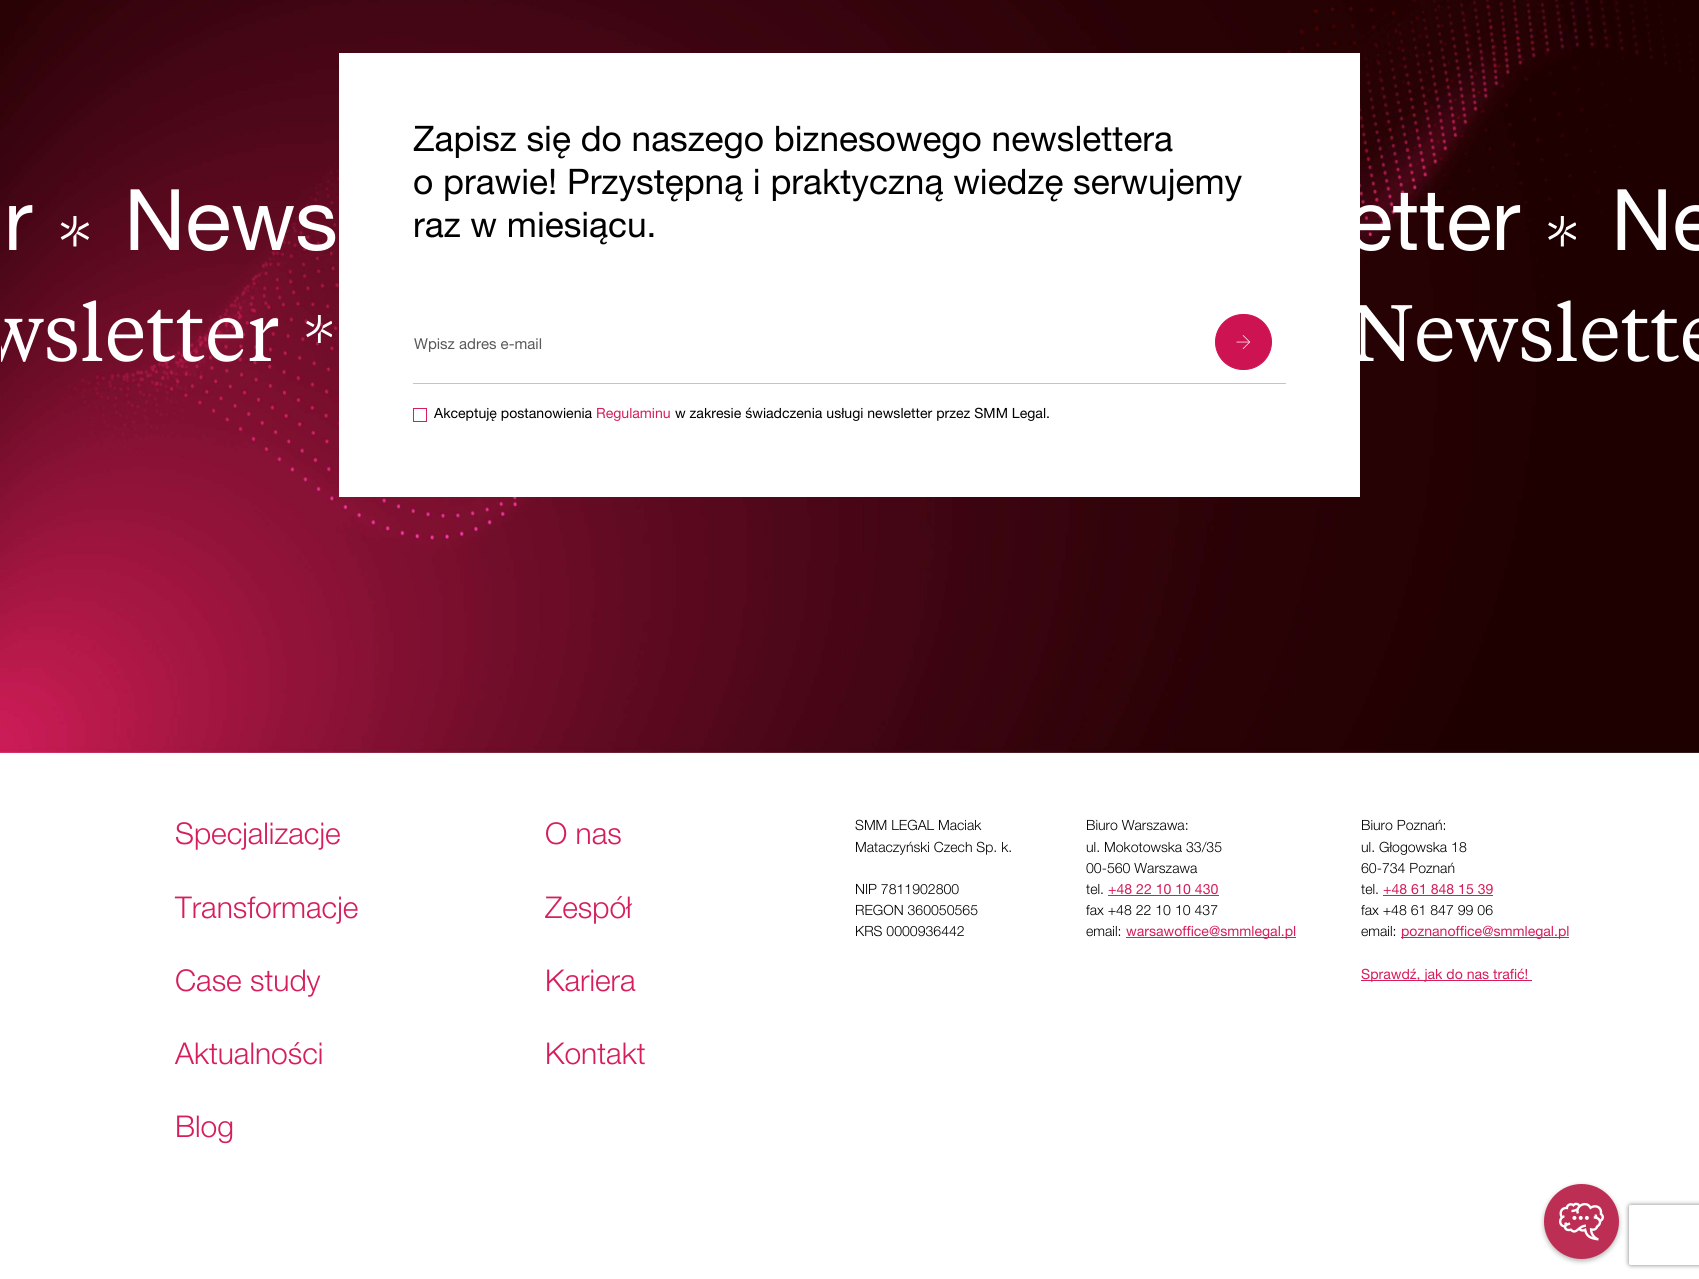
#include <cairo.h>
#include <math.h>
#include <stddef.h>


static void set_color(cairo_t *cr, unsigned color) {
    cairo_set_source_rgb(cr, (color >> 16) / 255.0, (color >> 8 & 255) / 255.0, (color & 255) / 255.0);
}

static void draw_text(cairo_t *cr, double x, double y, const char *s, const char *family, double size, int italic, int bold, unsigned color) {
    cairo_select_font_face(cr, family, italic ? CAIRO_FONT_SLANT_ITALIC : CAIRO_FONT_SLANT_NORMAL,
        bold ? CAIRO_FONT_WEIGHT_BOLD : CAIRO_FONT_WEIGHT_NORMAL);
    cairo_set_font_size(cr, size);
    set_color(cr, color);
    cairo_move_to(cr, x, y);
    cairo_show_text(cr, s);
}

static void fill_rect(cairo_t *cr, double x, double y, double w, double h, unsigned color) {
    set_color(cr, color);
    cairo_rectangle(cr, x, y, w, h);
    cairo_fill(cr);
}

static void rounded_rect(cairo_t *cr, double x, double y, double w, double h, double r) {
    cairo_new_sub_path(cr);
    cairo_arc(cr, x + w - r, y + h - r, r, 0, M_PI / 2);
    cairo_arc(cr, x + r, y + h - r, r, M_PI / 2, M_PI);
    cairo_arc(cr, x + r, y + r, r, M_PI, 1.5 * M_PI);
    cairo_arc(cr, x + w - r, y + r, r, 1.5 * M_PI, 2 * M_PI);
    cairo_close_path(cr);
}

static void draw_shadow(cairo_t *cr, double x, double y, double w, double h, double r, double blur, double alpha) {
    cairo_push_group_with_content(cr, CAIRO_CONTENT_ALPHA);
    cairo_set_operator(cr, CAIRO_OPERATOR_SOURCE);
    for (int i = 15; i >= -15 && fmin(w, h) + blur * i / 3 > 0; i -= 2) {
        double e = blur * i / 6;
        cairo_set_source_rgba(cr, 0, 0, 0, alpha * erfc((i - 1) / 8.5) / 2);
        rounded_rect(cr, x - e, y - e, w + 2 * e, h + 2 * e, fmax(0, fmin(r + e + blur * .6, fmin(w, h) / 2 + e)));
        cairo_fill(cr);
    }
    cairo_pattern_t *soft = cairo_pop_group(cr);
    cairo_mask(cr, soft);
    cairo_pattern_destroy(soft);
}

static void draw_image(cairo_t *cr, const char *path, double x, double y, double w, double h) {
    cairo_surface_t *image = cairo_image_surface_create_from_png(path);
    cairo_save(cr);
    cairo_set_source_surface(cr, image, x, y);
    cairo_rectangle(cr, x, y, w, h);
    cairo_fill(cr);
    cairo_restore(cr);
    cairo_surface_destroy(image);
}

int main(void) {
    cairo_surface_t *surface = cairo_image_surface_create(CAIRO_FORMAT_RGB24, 1699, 1279);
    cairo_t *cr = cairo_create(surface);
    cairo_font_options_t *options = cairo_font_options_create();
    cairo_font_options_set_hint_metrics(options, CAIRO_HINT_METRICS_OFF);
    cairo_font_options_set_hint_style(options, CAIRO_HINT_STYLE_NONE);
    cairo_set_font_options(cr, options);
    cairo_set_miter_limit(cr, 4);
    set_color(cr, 0xFFFFFF);
    cairo_paint(cr);
    draw_image(cr, "assets/img1.png", 0, 0, 1699, 753);
    fill_rect(cr, 339, 53, 1021, 444, 0xFFFFFF);
    draw_text(cr, 413, 151, "Zapisz się do naszego biznesowego newslettera", "Helvetica Neue", 35.25, 0, 0, 0x000000);
    draw_text(cr, 413, 194, "o prawie! Przystępną i praktyczną wiedzę serwujemy", "Helvetica Neue", 35.25, 0, 0, 0x000000);
    draw_text(cr, 413, 237, "raz w miesiącu.", "Helvetica Neue", 35.25, 0, 0, 0x000000);
    draw_text(cr, 414, 349, "Wpisz adres e-mail", "Helvetica Neue", 15, 0, 0, 0x595959);
    fill_rect(cr, 413, 383, 873, 1, 0xC4C4C4);
    set_color(cr, 0xCE1352);
    rounded_rect(cr, 1215.5, 314.5, 56, 55, 27.5);
    cairo_fill_preserve(cr);
    cairo_set_line_width(cr, 1);
    cairo_stroke(cr);
    draw_image(cr, "assets/img2.png", 1236, 335, 14, 14);
    cairo_rectangle(cr, 413.5, 408.5, 13, 13);
    set_color(cr, 0xD61E5C);
    cairo_stroke(cr);
    draw_text(cr, 434, 418, "Akceptuję postanowienia", "Helvetica Neue", 14.1, 0, 0, 0x000000);
    draw_text(cr, 596, 418, "Regulaminu", "Helvetica Neue", 14.1, 0, 0, 0xD61E5C);
    draw_text(cr, 675, 418, "w zakresie świadczenia usługi newsletter przez SMM Legal.", "Helvetica Neue", 14.1, 0, 0, 0x000000);
    draw_text(cr, 4, 250, "r", "Helvetica Neue", 85, 0, 0, 0xFFFFFF);
    draw_image(cr, "assets/img3.png", 60, 216, 29, 31);
    draw_text(cr, 124, 250, "News", "Helvetica Neue", 85, 0, 0, 0xFFFFFF);
    draw_text(cr, 1347, 250, "etter", "Helvetica Neue", 85, 0, 0, 0xFFFFFF);
    draw_image(cr, "assets/img4.png", 1548, 216, 28, 31);
    draw_text(cr, 1611, 250, "Ne", "Helvetica Neue", 85, 0, 0, 0xFFFFFF);
    cairo_save(cr);
    cairo_rectangle(cr, 1, 169, 1698, 212);
    cairo_clip(cr);
    draw_text(cr, -19, 361, "wsletter", "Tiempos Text", 79.5, 0, 0, 0xFFFFFF);
    cairo_restore(cr);
    draw_image(cr, "assets/img5.png", 306, 315, 26, 28);
    draw_text(cr, 1350, 361, "Newslette", "Tiempos Text", 79.5, 0, 0, 0xFFFFFF);
    draw_text(cr, 175, 844, "Specjalizacje", "Helvetica Neue Light", 30, 0, 0, 0xD61E5C);
    draw_text(cr, 545, 844, "O nas", "Helvetica Neue Light", 30, 0, 0, 0xD61E5C);
    draw_text(cr, 175, 918, "Transformacje", "Helvetica Neue Light", 30, 0, 0, 0xD61E5C);
    draw_text(cr, 545, 918, "Zespół", "Helvetica Neue Light", 30, 0, 0, 0xD61E5C);
    draw_text(cr, 175, 991, "Case study", "Helvetica Neue Light", 30, 0, 0, 0xD61E5C);
    draw_text(cr, 545, 991, "Kariera", "Helvetica Neue Light", 30, 0, 0, 0xD61E5C);
    draw_text(cr, 175, 1064, "Aktualności", "Helvetica Neue Light", 30, 0, 0, 0xD61E5C);
    draw_text(cr, 545, 1064, "Kontakt", "Helvetica Neue Light", 30, 0, 0, 0xD61E5C);
    draw_text(cr, 175, 1137, "Blog", "Helvetica Neue Light", 30, 0, 0, 0xD61E5C);
    draw_text(cr, 855, 830, "SMM LEGAL Maciak", "Helvetica Neue Light", 14.1, 0, 0, 0x000000);
    draw_text(cr, 855, 852, "Mataczyński Czech Sp. k.", "Helvetica Neue Light", 14.1, 0, 0, 0x000000);
    draw_text(cr, 855, 894, "NIP 7811902800", "Helvetica Neue Light", 14.1, 0, 0, 0x000000);
    draw_text(cr, 855, 915, "REGON 360050565", "Helvetica Neue Light", 14.1, 0, 0, 0x000000);
    draw_text(cr, 855, 936, "KRS 0000936442", "Helvetica Neue Light", 14.1, 0, 0, 0x000000);
    draw_text(cr, 1086, 830, "Biuro Warszawa:", "Helvetica Neue Light", 14.1, 0, 0, 0x000000);
    draw_text(cr, 1086, 852, "ul. Mokotowska 33/35", "Helvetica Neue Light", 14.1, 0, 0, 0x000000);
    draw_text(cr, 1086, 873, "00-560 Warszawa", "Helvetica Neue Light", 14.1, 0, 0, 0x000000);
    draw_text(cr, 1086, 894, "tel.", "Helvetica Neue Light", 14.1, 0, 0, 0x000000);
    draw_text(cr, 1108, 894, "+48 22 10 10 430", "Helvetica Neue", 14.1, 0, 0, 0xD61E5C);
    fill_rect(cr, 1108, 895, 111, 1, 0xD61E5C);
    draw_text(cr, 1086, 915, "fax +48 22 10 10 437", "Helvetica Neue Light", 14.1, 0, 0, 0x000000);
    draw_text(cr, 1086, 936, "email:", "Helvetica Neue Light", 14.1, 0, 0, 0x000000);
    fill_rect(cr, 1126, 937, 170, 1, 0xD61E5C);
    draw_text(cr, 1126, 936, "warsawoffice@smmlegal.pl", "Helvetica Neue", 14.1, 0, 0, 0xD61E5C);
    draw_text(cr, 1361, 830, "Biuro Poznań:", "Helvetica Neue Light", 14.1, 0, 0, 0x000000);
    draw_text(cr, 1361, 852, "ul. Głogowska 18", "Helvetica Neue Light", 14.1, 0, 0, 0x000000);
    draw_text(cr, 1361, 873, "60-734 Poznań", "Helvetica Neue Light", 14.1, 0, 0, 0x000000);
    draw_text(cr, 1361, 894, "tel.", "Helvetica Neue Light", 14.1, 0, 0, 0x000000);
    draw_text(cr, 1383, 894, "+48 61 848 15 39", "Helvetica Neue", 14.1, 0, 0, 0xD61E5C);
    fill_rect(cr, 1383, 895, 110, 1, 0xD61E5C);
    draw_text(cr, 1361, 915, "fax +48 61 847 99 06", "Helvetica Neue Light", 14.1, 0, 0, 0x000000);
    draw_text(cr, 1361, 936, "email:", "Helvetica Neue Light", 14.1, 0, 0, 0x000000);
    fill_rect(cr, 1401, 937, 168, 1, 0xD61E5C);
    draw_text(cr, 1401, 936, "poznanoffice@smmlegal.pl", "Helvetica Neue", 14.1, 0, 0, 0xD61E5C);
    fill_rect(cr, 1361, 980, 171, 1, 0xD61E5C);
    draw_text(cr, 1361, 979, "Sprawdź, jak do nas trafić!", "Helvetica Neue", 14.1, 0, 0, 0xD61E5C);
    set_color(cr, 0x000000);
    draw_shadow(cr, 1544, 1186, 75, 75, 37.5, 2.5, 0.3);
    set_color(cr, 0xBD2E54);
    cairo_arc(cr, 1581.5, 1221.5, 37.5, 0, 2 * M_PI);
    cairo_fill(cr);
    draw_image(cr, "assets/img6.png", 1559, 1202, 45, 39);
    cairo_save(cr);
    cairo_set_fill_rule(cr, CAIRO_FILL_RULE_EVEN_ODD);
    cairo_new_path(cr);
    cairo_move_to(cr, 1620, 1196);
    cairo_line_to(cr, 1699, 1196);
    cairo_line_to(cr, 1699, 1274);
    cairo_line_to(cr, 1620, 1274);
    cairo_close_path(cr);
    cairo_move_to(cr, 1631, 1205);
    cairo_line_to(cr, 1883, 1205);
    cairo_curve_to(cr, 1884, 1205, 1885, 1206, 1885, 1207);
    cairo_line_to(cr, 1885, 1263);
    cairo_curve_to(cr, 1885, 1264, 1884, 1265, 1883, 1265);
    cairo_line_to(cr, 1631, 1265);
    cairo_curve_to(cr, 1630, 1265, 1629, 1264, 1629, 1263);
    cairo_line_to(cr, 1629, 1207);
    cairo_curve_to(cr, 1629, 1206, 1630, 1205, 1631, 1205);
    cairo_close_path(cr);
    cairo_clip(cr);
    set_color(cr, 0x808080);
    draw_shadow(cr, 1629, 1205, 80, 60, 2, 2.5, 1);
    cairo_restore(cr);
    cairo_surface_write_to_png(surface, "output.png");
    cairo_font_options_destroy(options);
    cairo_destroy(cr);
    cairo_surface_destroy(surface);
    return 0;
}
